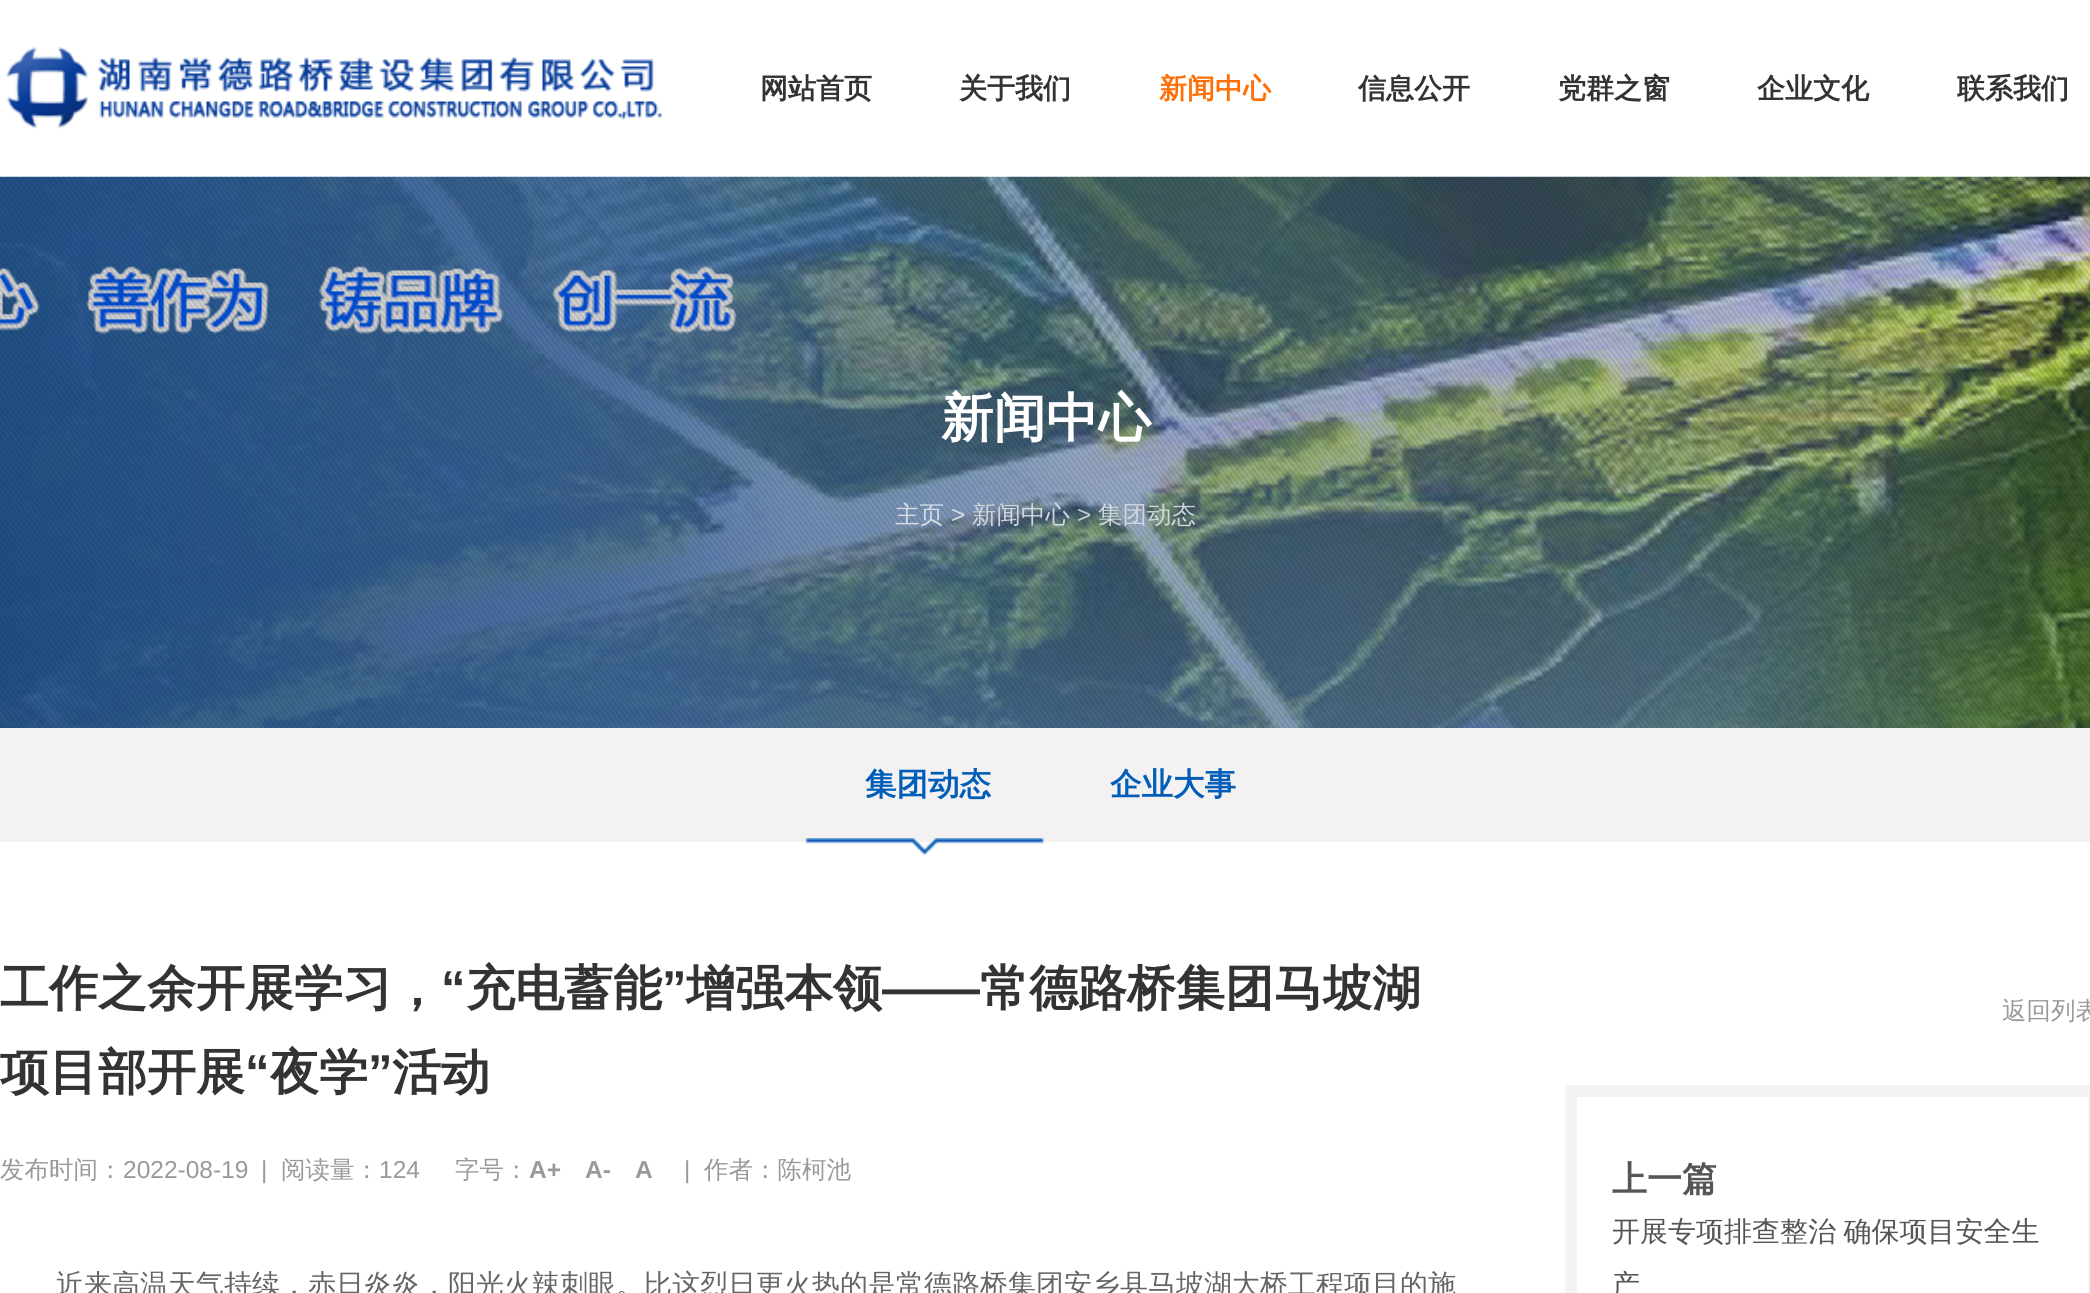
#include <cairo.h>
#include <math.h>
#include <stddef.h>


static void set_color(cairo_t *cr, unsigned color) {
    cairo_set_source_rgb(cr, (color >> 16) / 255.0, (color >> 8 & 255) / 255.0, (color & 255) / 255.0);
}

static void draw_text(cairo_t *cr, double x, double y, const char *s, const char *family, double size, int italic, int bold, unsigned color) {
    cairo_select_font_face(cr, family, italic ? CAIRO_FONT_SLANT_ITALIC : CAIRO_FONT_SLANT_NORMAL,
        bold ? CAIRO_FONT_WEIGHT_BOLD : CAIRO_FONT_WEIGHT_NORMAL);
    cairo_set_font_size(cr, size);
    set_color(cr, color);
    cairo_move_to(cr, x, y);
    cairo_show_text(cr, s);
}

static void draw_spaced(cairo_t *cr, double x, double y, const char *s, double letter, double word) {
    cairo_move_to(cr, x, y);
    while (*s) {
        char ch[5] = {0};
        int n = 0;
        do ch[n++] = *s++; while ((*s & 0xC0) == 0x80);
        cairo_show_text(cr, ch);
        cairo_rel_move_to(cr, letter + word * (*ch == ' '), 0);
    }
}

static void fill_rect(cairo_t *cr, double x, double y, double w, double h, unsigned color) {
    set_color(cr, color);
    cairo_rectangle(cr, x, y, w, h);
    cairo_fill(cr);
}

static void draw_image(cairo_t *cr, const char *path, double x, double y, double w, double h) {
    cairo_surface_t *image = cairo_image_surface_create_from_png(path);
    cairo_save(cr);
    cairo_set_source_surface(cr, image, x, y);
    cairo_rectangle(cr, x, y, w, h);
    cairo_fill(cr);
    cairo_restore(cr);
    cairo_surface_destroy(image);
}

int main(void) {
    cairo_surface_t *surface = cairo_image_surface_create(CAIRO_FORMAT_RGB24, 2090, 1293);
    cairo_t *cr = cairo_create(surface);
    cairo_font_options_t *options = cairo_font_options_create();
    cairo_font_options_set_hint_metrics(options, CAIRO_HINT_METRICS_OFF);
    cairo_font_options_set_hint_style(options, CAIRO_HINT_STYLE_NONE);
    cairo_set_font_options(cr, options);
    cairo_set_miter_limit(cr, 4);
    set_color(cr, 0xFFFFFF);
    cairo_paint(cr);
    draw_image(cr, "assets/img1.png", 6, 47, 656, 82);
    draw_text(cr, 760, 98, "网站首页", "WenQuanYi Zen Hei", 28, 0, 1, 0x333333);
    draw_text(cr, 959, 98, "关于我们", "WenQuanYi Zen Hei", 28, 0, 1, 0x333333);
    draw_text(cr, 1159, 98, "新闻中心", "WenQuanYi Zen Hei", 28, 0, 1, 0xFF6F06);
    draw_text(cr, 1358, 98, "信息公开", "WenQuanYi Zen Hei", 28, 0, 1, 0x333333);
    draw_text(cr, 1558, 98, "党群之窗", "WenQuanYi Zen Hei", 28, 0, 1, 0x333333);
    draw_text(cr, 1757, 98, "企业文化", "WenQuanYi Zen Hei", 28, 0, 1, 0x333333);
    draw_text(cr, 1957, 98, "联系我们", "WenQuanYi Zen Hei", 28, 0, 1, 0x333333);
    draw_image(cr, "assets/img2.png", 0, 176, 2090, 552);
    draw_image(cr, "assets/img3.png", 0, 177, 2090, 551);
    draw_text(cr, 941, 436, "新闻中心", "WenQuanYi Zen Hei", 52.5, 0, 1, 0xFFFFFF);
    draw_text(cr, 895, 523, "主页", "WenQuanYi Zen Hei Medium", 24.5, 0, 0, 0xD5DCE6);
    draw_text(cr, 951, 523, ">", "Liberation Sans", 24.5, 0, 0, 0xD5DCE6);
    draw_text(cr, 972, 523, "新闻中心", "WenQuanYi Zen Hei Medium", 24.5, 0, 0, 0xD0D6DC);
    draw_text(cr, 1077, 523, ">", "Liberation Sans", 24.5, 0, 0, 0xC7CED1);
    draw_text(cr, 1098, 523, "集团动态", "WenQuanYi Zen Hei Medium", 24.5, 0, 0, 0xD0D6DC);
    fill_rect(cr, 0, 728, 2090, 114, 0xF3F1F1);
    draw_text(cr, 865, 795, "集团动态", "WenQuanYi Zen Hei", 31.5, 0, 1, 0x005EB8);
    draw_text(cr, 1110, 795, "企业大事", "WenQuanYi Zen Hei", 31.5, 0, 1, 0x005EB8);
    draw_image(cr, "assets/img4.png", 805, 838, 240, 18);
    draw_text(cr, 0, 1005, "工作之余开展学习，", "WenQuanYi Zen Hei", 49, 0, 1, 0x333333);
    draw_text(cr, 441, 1005, "“", "Liberation Sans", 49, 0, 1, 0x333333);
    draw_text(cr, 466, 1005, "充电蓄能", "WenQuanYi Zen Hei", 49, 0, 1, 0x333333);
    draw_text(cr, 662, 1005, "”", "Liberation Sans", 49, 0, 1, 0x333333);
    draw_text(cr, 686, 1005, "增强本领", "WenQuanYi Zen Hei", 49, 0, 1, 0x333333);
    draw_text(cr, 980, 1005, "常德路桥集团马坡湖", "WenQuanYi Zen Hei", 49, 0, 1, 0x333333);
    draw_text(cr, 882, 1005, "——", "Liberation Sans", 49, 0, 1, 0x333333);
    draw_text(cr, 0, 1089, "项目部开展", "WenQuanYi Zen Hei", 49, 0, 1, 0x333333);
    draw_text(cr, 245, 1089, "“", "Liberation Sans", 49, 0, 1, 0x333333);
    draw_text(cr, 270, 1089, "夜学", "WenQuanYi Zen Hei", 49, 0, 1, 0x333333);
    draw_text(cr, 368, 1089, "”", "Liberation Sans", 49, 0, 1, 0x333333);
    draw_text(cr, 392, 1089, "活动", "WenQuanYi Zen Hei", 49, 0, 1, 0x333333);
    draw_text(cr, 0, 1178, "发布时间：", "WenQuanYi Zen Hei Medium", 24.5, 0, 0, 0x999999);
    draw_text(cr, 123, 1178, "2022-08-19", "Liberation Sans", 24.5, 0, 0, 0x999999);
    draw_text(cr, 261, 1178, "|", "Liberation Sans", 24.5, 0, 0, 0x999999);
    draw_text(cr, 281, 1178, "阅读量：", "WenQuanYi Zen Hei Medium", 24.5, 0, 0, 0x999999);
    draw_text(cr, 379, 1178, "124", "Liberation Sans", 24.5, 0, 0, 0x999999);
    draw_text(cr, 455, 1178, "字号：", "WenQuanYi Zen Hei Medium", 24.5, 0, 0, 0x999999);
    draw_text(cr, 529, 1178, "A+", "Liberation Sans", 24.5, 0, 1, 0x999999);
    draw_text(cr, 585, 1178, "A-", "Liberation Sans", 24.5, 0, 1, 0x999999);
    draw_text(cr, 635, 1178, "A", "Liberation Sans", 24.5, 0, 1, 0x999999);
    draw_text(cr, 684, 1178, "|", "Liberation Sans", 24.5, 0, 0, 0x999999);
    draw_text(cr, 704, 1178, "作者：陈柯池", "WenQuanYi Zen Hei Medium", 24.5, 0, 0, 0x999999);
    draw_text(cr, 56, 1294, "近来高温天气持续，赤日炎炎，阳光火辣刺眼。比这烈日更火热的是常德路桥集团安乡县马坡湖大桥工程项目的施", "WenQuanYi Zen Hei Medium", 28, 0, 0, 0x666666);
    draw_text(cr, 2002, 1019, "返回列表", "WenQuanYi Zen Hei Medium", 24.5, 0, 0, 0x999999);
    cairo_rectangle(cr, 1571, 1091, 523, 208);
    set_color(cr, 0xF3F3F3);
    cairo_set_line_width(cr, 12);
    cairo_stroke(cr);
    draw_text(cr, 1612, 1191, "上一篇", "WenQuanYi Zen Hei", 35, 0, 1, 0x555555);
    cairo_select_font_face(cr, "WenQuanYi Zen Hei Medium", CAIRO_FONT_SLANT_NORMAL, CAIRO_FONT_WEIGHT_NORMAL);
    cairo_set_font_size(cr, 28);
    draw_spaced(cr, 1612, 1241, "开展专项排查整治 确保项目安全生", 0, -1);
    draw_text(cr, 1612, 1294, "产", "WenQuanYi Zen Hei Medium", 28, 0, 0, 0x555555);
    cairo_surface_write_to_png(surface, "output.png");
    cairo_font_options_destroy(options);
    cairo_destroy(cr);
    cairo_surface_destroy(surface);
    return 0;
}
